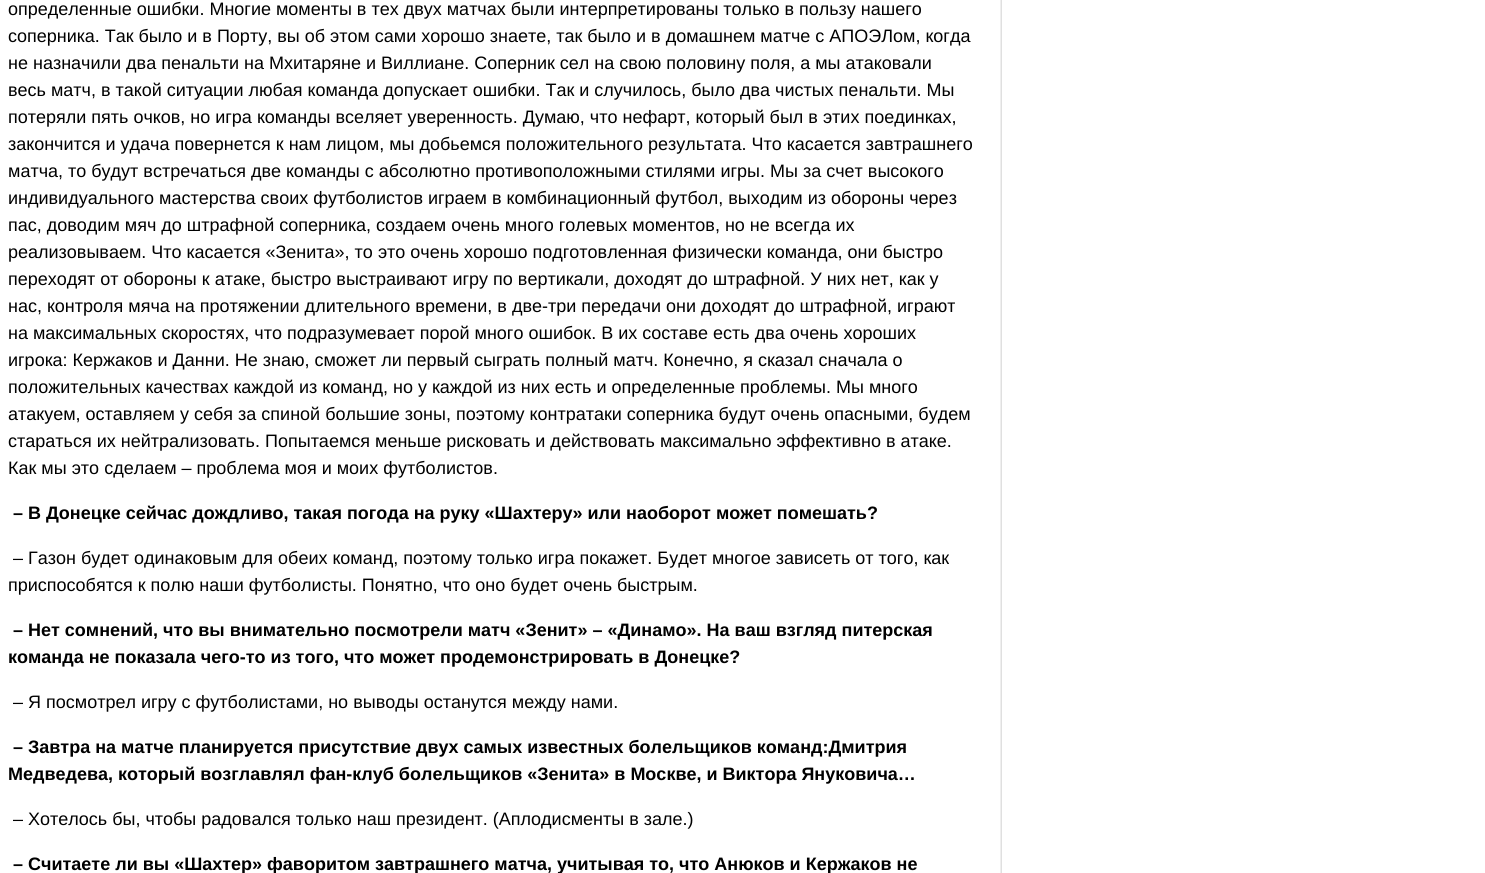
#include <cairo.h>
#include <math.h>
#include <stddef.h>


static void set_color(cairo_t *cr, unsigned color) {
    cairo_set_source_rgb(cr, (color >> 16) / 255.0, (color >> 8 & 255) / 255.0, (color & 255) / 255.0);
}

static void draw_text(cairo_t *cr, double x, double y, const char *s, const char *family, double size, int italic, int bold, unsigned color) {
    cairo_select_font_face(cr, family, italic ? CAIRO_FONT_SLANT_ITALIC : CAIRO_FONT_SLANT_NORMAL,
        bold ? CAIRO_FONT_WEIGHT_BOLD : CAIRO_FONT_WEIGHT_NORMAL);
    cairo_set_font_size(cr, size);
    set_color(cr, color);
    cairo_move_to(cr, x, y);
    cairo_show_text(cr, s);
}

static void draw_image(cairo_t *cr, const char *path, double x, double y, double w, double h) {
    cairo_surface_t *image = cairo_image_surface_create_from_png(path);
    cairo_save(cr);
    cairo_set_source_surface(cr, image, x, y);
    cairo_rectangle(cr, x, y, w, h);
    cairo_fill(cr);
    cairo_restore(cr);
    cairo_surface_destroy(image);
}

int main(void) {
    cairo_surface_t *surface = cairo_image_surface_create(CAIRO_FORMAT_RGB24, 1485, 873);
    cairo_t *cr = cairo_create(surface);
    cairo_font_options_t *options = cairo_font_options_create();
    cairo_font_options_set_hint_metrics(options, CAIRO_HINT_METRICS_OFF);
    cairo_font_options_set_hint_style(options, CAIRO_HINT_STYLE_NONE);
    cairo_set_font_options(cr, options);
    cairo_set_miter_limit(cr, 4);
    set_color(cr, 0xFFFFFF);
    cairo_paint(cr);
    draw_image(cr, "assets/img1.png", 1000, 0, 2, 873);
    draw_text(cr, 8, 15, "определенные ошибки. Многие моменты в тех двух матчах были интерпретированы только в пользу нашего", "Liberation Sans", 18, 0, 0, 0x000000);
    draw_text(cr, 8, 42, "соперника. Так было и в Порту, вы об этом сами хорошо знаете, так было и в домашнем матче с АПОЭЛом, когда", "Liberation Sans", 18, 0, 0, 0x000000);
    draw_text(cr, 8, 69, "не назначили два пенальти на Мхитаряне и Виллиане. Соперник сел на свою половину поля, а мы атаковали", "Liberation Sans", 18, 0, 0, 0x000000);
    draw_text(cr, 8, 96, "весь матч, в такой ситуации любая команда допускает ошибки. Так и случилось, было два чистых пенальти. Мы", "Liberation Sans", 18, 0, 0, 0x000000);
    draw_text(cr, 8, 123, "потеряли пять очков, но игра команды вселяет уверенность. Думаю, что нефарт, который был в этих поединках,", "Liberation Sans", 18, 0, 0, 0x000000);
    draw_text(cr, 8, 150, "закончится и удача повернется к нам лицом, мы добьемся положительного результата. Что касается завтрашнего", "Liberation Sans", 18, 0, 0, 0x000000);
    draw_text(cr, 8, 177, "матча, то будут встречаться две команды с абсолютно противоположными стилями игры. Мы за счет высокого", "Liberation Sans", 18, 0, 0, 0x000000);
    draw_text(cr, 8, 204, "индивидуального мастерства своих футболистов играем в комбинационный футбол, выходим из обороны через", "Liberation Sans", 18, 0, 0, 0x000000);
    draw_text(cr, 8, 231, "пас, доводим мяч до штрафной соперника, создаем очень много голевых моментов, но не всегда их", "Liberation Sans", 18, 0, 0, 0x000000);
    draw_text(cr, 8, 258, "реализовываем. Что касается «Зенита», то это очень хорошо подготовленная физически команда, они быстро", "Liberation Sans", 18, 0, 0, 0x000000);
    draw_text(cr, 8, 285, "переходят от обороны к атаке, быстро выстраивают игру по вертикали, доходят до штрафной. У них нет, как у", "Liberation Sans", 18, 0, 0, 0x000000);
    draw_text(cr, 8, 312, "нас, контроля мяча на протяжении длительного времени, в две-три передачи они доходят до штрафной, играют", "Liberation Sans", 18, 0, 0, 0x000000);
    draw_text(cr, 8, 339, "на максимальных скоростях, что подразумевает порой много ошибок. В их составе есть два очень хороших", "Liberation Sans", 18, 0, 0, 0x000000);
    draw_text(cr, 8, 366, "игрока: Кержаков и Данни. Не знаю, сможет ли первый сыграть полный матч. Конечно, я сказал сначала о", "Liberation Sans", 18, 0, 0, 0x000000);
    draw_text(cr, 8, 393, "положительных качествах каждой из команд, но у каждой из них есть и определенные проблемы. Мы много", "Liberation Sans", 18, 0, 0, 0x000000);
    draw_text(cr, 8, 420, "атакуем, оставляем у себя за спиной большие зоны, поэтому контратаки соперника будут очень опасными, будем", "Liberation Sans", 18, 0, 0, 0x000000);
    draw_text(cr, 8, 447, "стараться их нейтрализовать. Попытаемся меньше рисковать и действовать максимально эффективно в атаке.", "Liberation Sans", 18, 0, 0, 0x000000);
    draw_text(cr, 8, 474, "Как мы это сделаем – проблема моя и моих футболистов.", "Liberation Sans", 18, 0, 0, 0x000000);
    draw_text(cr, 13, 519, "– В Донецке сейчас дождливо, такая погода на руку «Шахтеру» или наоборот может помешать?", "Liberation Sans", 18, 0, 1, 0x000000);
    draw_text(cr, 13, 564, "– Газон будет одинаковым для обеих команд, поэтому только игра покажет. Будет многое зависеть от того, как", "Liberation Sans", 18, 0, 0, 0x000000);
    draw_text(cr, 8, 591, "приспособятся к полю наши футболисты. Понятно, что оно будет очень быстрым.", "Liberation Sans", 18, 0, 0, 0x000000);
    draw_text(cr, 13, 636, "– Нет сомнений, что вы внимательно посмотрели матч «Зенит» – «Динамо». На ваш взгляд питерская", "Liberation Sans", 18, 0, 1, 0x000000);
    draw_text(cr, 8, 663, "команда не показала чего-то из того, что может продемонстрировать в Донецке?", "Liberation Sans", 18, 0, 1, 0x000000);
    draw_text(cr, 13, 708, "– Я посмотрел игру с футболистами, но выводы останутся между нами.", "Liberation Sans", 18, 0, 0, 0x000000);
    draw_text(cr, 13, 753, "– Завтра на матче планируется присутствие двух самых известных болельщиков команд:Дмитрия", "Liberation Sans", 18, 0, 1, 0x000000);
    draw_text(cr, 8, 780, "Медведева, который возглавлял фан-клуб болельщиков «Зенита» в Москве, и Виктора Януковича…", "Liberation Sans", 18, 0, 1, 0x000000);
    draw_text(cr, 13, 825, "– Хотелось бы, чтобы радовался только наш президент. (Аплодисменты в зале.)", "Liberation Sans", 18, 0, 0, 0x000000);
    draw_text(cr, 13, 870, "– Считаете ли вы «Шахтер» фаворитом завтрашнего матча, учитывая то, что Анюков и Кержаков не", "Liberation Sans", 18, 0, 1, 0x000000);
    cairo_surface_write_to_png(surface, "output.png");
    cairo_font_options_destroy(options);
    cairo_destroy(cr);
    cairo_surface_destroy(surface);
    return 0;
}
